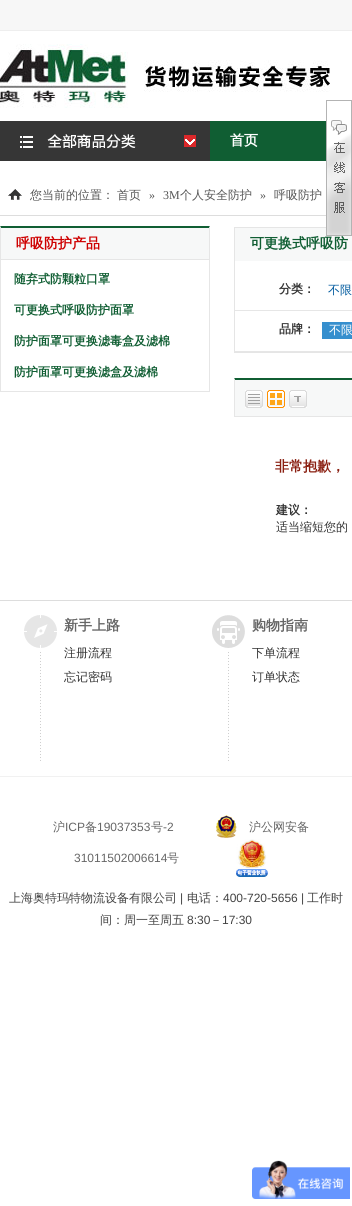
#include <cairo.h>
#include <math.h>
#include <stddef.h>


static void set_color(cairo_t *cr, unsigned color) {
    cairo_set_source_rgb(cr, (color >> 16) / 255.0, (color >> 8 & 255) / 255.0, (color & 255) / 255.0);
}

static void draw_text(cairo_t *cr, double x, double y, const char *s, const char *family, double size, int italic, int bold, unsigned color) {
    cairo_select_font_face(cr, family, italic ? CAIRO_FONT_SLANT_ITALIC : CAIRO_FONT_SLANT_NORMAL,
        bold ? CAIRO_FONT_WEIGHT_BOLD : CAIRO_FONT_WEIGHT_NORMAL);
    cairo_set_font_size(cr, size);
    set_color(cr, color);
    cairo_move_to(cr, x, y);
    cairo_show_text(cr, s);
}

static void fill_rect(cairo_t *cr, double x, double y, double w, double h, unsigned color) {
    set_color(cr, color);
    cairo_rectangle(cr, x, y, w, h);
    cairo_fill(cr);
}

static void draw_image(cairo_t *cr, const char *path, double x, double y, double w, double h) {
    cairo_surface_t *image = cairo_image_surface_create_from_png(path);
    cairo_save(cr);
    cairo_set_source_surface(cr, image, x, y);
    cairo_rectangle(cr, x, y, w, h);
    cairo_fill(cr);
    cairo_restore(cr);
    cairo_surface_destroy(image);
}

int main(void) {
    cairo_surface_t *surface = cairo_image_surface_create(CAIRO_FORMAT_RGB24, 352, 1206);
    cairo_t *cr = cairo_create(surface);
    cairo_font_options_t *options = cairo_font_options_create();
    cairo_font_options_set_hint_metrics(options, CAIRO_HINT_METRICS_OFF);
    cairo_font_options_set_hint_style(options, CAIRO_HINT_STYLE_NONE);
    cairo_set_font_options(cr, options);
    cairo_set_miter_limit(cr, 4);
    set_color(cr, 0xFFFFFF);
    cairo_paint(cr);
    fill_rect(cr, 0, 0, 352, 30, 0xF7F7F7);
    fill_rect(cr, 0, 30, 352, 1, 0xEEEEEE);
    draw_image(cr, "assets/img1.png", 0, 44, 330, 64);
    fill_rect(cr, 210, 121, 116, 40, 0x105E33);
    draw_image(cr, "assets/img2.png", 0, 121, 210, 40);
    draw_image(cr, "assets/img3.png", 184, 135, 12, 12);
    draw_text(cr, 230, 145, "首页", "WenQuanYi Zen Hei", 14, 0, 1, 0xFFFFFF);
    draw_image(cr, "assets/img4.png", 8, 189, 14, 11);
    fill_rect(cr, 0, 215, 326, 1, 0xDDDDDD);
    draw_text(cr, 30, 199, "您当前的位置：", "WenQuanYi Zen Hei Medium", 12, 0, 0, 0x555555);
    draw_text(cr, 117, 199, "首页", "WenQuanYi Zen Hei Medium", 12, 0, 0, 0x555555);
    draw_text(cr, 149, 199, "»", "Liberation Serif", 12, 0, 0, 0x555555);
    draw_text(cr, 163, 199, "3M", "Liberation Serif", 12, 0, 0, 0x555555);
    draw_text(cr, 180, 199, "个人安全防护", "WenQuanYi Zen Hei Medium", 12, 0, 0, 0x555555);
    draw_text(cr, 260, 199, "»", "Liberation Serif", 12, 0, 0, 0x555555);
    draw_text(cr, 274, 199, "呼吸防护", "WenQuanYi Zen Hei Medium", 12, 0, 0, 0x555555);
    set_color(cr, 0x105E33);
    cairo_new_path(cr);
    cairo_move_to(cr, 0, 226);
    cairo_line_to(cr, 210, 226);
    cairo_line_to(cr, 209, 228);
    cairo_line_to(cr, 1, 228);
    cairo_close_path(cr);
    cairo_fill(cr);
    set_color(cr, 0xE6E6E6);
    cairo_new_path(cr);
    cairo_move_to(cr, 210, 226);
    cairo_line_to(cr, 210, 392);
    cairo_line_to(cr, 209, 391);
    cairo_line_to(cr, 209, 228);
    cairo_close_path(cr);
    cairo_fill(cr);
    fill_rect(cr, 0, 391, 210, 1, 0xE6E6E6);
    cairo_new_path(cr);
    cairo_move_to(cr, 0, 392);
    cairo_line_to(cr, 0, 226);
    cairo_line_to(cr, 1, 228);
    cairo_line_to(cr, 1, 391);
    cairo_close_path(cr);
    cairo_fill(cr);
    fill_rect(cr, 1, 228, 208, 31, 0xF7F8F8);
    fill_rect(cr, 1, 259, 208, 1, 0xE6E6E6);
    draw_text(cr, 16, 248, "呼吸防护产品", "WenQuanYi Zen Hei", 14, 0, 1, 0xCE0000);
    draw_text(cr, 14, 283, "随弃式防颗粒口罩", "WenQuanYi Zen Hei", 12, 0, 1, 0x105E33);
    draw_text(cr, 14, 314, "可更换式呼吸防护面罩", "WenQuanYi Zen Hei", 12, 0, 1, 0x105E33);
    draw_text(cr, 14, 345, "防护面罩可更换滤毒盒及滤棉", "WenQuanYi Zen Hei", 12, 0, 1, 0x105E33);
    draw_text(cr, 14, 376, "防护面罩可更换滤盒及滤棉", "WenQuanYi Zen Hei", 12, 0, 1, 0x105E33);
    cairo_rectangle(cr, 234.5, 227.5, 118, 125);
    set_color(cr, 0xE5E5E5);
    cairo_set_line_width(cr, 1);
    cairo_stroke(cr);
    fill_rect(cr, 235, 228, 117, 33, 0xF7F8F8);
    draw_text(cr, 250, 248, "可更换式呼吸防", "WenQuanYi Zen Hei", 14, 0, 1, 0x105E33);
    draw_text(cr, 279, 293, "分类：", "WenQuanYi Zen Hei", 12, 0, 1, 0x333333);
    fill_rect(cr, 235, 310, 117, 1, 0xE6E6E6);
    draw_text(cr, 328, 294, "不限", "WenQuanYi Zen Hei Medium", 12, 0, 0, 0x025B9F);
    draw_text(cr, 279, 333, "品牌：", "WenQuanYi Zen Hei", 12, 0, 1, 0x333333);
    fill_rect(cr, 235, 351, 117, 1, 0xE6E6E6);
    cairo_rectangle(cr, 322.5, 322.5, 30, 16);
    set_color(cr, 0x368FCE);
    cairo_stroke(cr);
    fill_rect(cr, 323, 323, 29, 15, 0x368FCE);
    draw_text(cr, 329, 334, "不限", "WenQuanYi Zen Hei Medium", 12, 0, 0, 0xFFFFFF);
    fill_rect(cr, 235, 380, 117, 36, 0xF7F8F8);
    set_color(cr, 0x105E33);
    cairo_new_path(cr);
    cairo_move_to(cr, 234, 378);
    cairo_line_to(cr, 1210, 378);
    cairo_line_to(cr, 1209, 380);
    cairo_line_to(cr, 235, 380);
    cairo_close_path(cr);
    cairo_fill(cr);
    fill_rect(cr, 234, 416, 118, 1, 0xE6E6E6);
    cairo_new_path(cr);
    cairo_move_to(cr, 234, 417);
    cairo_line_to(cr, 234, 378);
    cairo_line_to(cr, 235, 380);
    cairo_line_to(cr, 235, 416);
    cairo_close_path(cr);
    cairo_fill(cr);
    draw_image(cr, "assets/img5.png", 245, 390, 18, 18);
    draw_image(cr, "assets/img6.png", 267, 390, 18, 18);
    draw_image(cr, "assets/img7.png", 289, 390, 18, 18);
    draw_text(cr, 275, 471, "非常抱歉，", "WenQuanYi Zen Hei", 14, 0, 1, 0x8A1F11);
    draw_text(cr, 276, 514, "建议：", "WenQuanYi Zen Hei", 12, 0, 1, 0x333333);
    draw_text(cr, 276, 531, "适当缩短您的", "WenQuanYi Zen Hei Medium", 12, 0, 0, 0x333333);
    fill_rect(cr, 0, 600, 352, 1, 0xDDDDDD);
    fill_rect(cr, 0, 776, 352, 1, 0xF1F1F1);
    draw_image(cr, "assets/img8.png", 24, 615, 33, 35);
    draw_text(cr, 64, 630, "新手上路", "WenQuanYi Zen Hei", 14, 0, 1, 0x666666);
    draw_image(cr, "assets/img9.png", 40, 650, 1, 111);
    draw_text(cr, 64, 657, "注册流程", "WenQuanYi Zen Hei Medium", 12, 0, 0, 0x333333);
    draw_text(cr, 64, 681, "忘记密码", "WenQuanYi Zen Hei Medium", 12, 0, 0, 0x333333);
    draw_image(cr, "assets/img10.png", 212, 615, 33, 35);
    draw_text(cr, 252, 630, "购物指南", "WenQuanYi Zen Hei", 14, 0, 1, 0x666666);
    draw_image(cr, "assets/img9.png", 228, 650, 1, 111);
    draw_text(cr, 252, 657, "下单流程", "WenQuanYi Zen Hei Medium", 12, 0, 0, 0x333333);
    draw_text(cr, 252, 681, "订单状态", "WenQuanYi Zen Hei Medium", 12, 0, 0, 0x333333);
    draw_image(cr, "assets/img11.png", 326, 100, 26, 136);
    draw_text(cr, 53, 831, "沪", "WenQuanYi Zen Hei Medium", 12, 0, 0, 0x666666);
    draw_text(cr, 65, 831, "ICP", "Liberation Sans", 12, 0, 0, 0x666666);
    draw_text(cr, 85, 831, "备", "WenQuanYi Zen Hei Medium", 12, 0, 0, 0x666666);
    draw_text(cr, 97, 831, "19037353", "Liberation Sans", 12, 0, 0, 0x666666);
    draw_text(cr, 151, 831, "号", "WenQuanYi Zen Hei Medium", 12, 0, 0, 0x666666);
    draw_text(cr, 163, 831, "-2", "Liberation Sans", 12, 0, 0, 0x666666);
    draw_image(cr, "assets/img12.png", 216, 815, 21, 23);
    draw_text(cr, 249, 831, "沪公网安备", "WenQuanYi Zen Hei Medium", 12, 0, 0, 0x666666);
    draw_text(cr, 74, 862, "31011502006614", "Liberation Sans", 12, 0, 0, 0x666666);
    draw_text(cr, 167, 862, "号", "WenQuanYi Zen Hei Medium", 12, 0, 0, 0x666666);
    draw_image(cr, "assets/img13.png", 236, 839, 32, 38);
    draw_text(cr, 9, 902, "上海奥特玛特物流设备有限公司", "WenQuanYi Zen Hei Medium", 12, 0, 0, 0x424242);
    draw_text(cr, 180, 902, "|", "Liberation Sans", 12, 0, 0, 0x424242);
    draw_text(cr, 187, 902, "电话：", "WenQuanYi Zen Hei Medium", 12, 0, 0, 0x424242);
    draw_text(cr, 223, 902, "400-720-5656 |", "Liberation Sans", 12, 0, 0, 0x424242);
    draw_text(cr, 307, 902, "工作时", "WenQuanYi Zen Hei Medium", 12, 0, 0, 0x424242);
    draw_text(cr, 100, 924, "间：周一至周五", "WenQuanYi Zen Hei Medium", 12, 0, 0, 0x424242);
    draw_text(cr, 187, 924, "8:30", "Liberation Sans", 12, 0, 0, 0x424242);
    draw_text(cr, 210, 924, "－", "WenQuanYi Zen Hei Medium", 12, 0, 0, 0x424242);
    draw_text(cr, 222, 924, "17:30", "Liberation Sans", 12, 0, 0, 0x424242);
    draw_image(cr, "assets/img14.png", 252, 1160, 98, 39);
    cairo_surface_write_to_png(surface, "output.png");
    cairo_font_options_destroy(options);
    cairo_destroy(cr);
    cairo_surface_destroy(surface);
    return 0;
}
